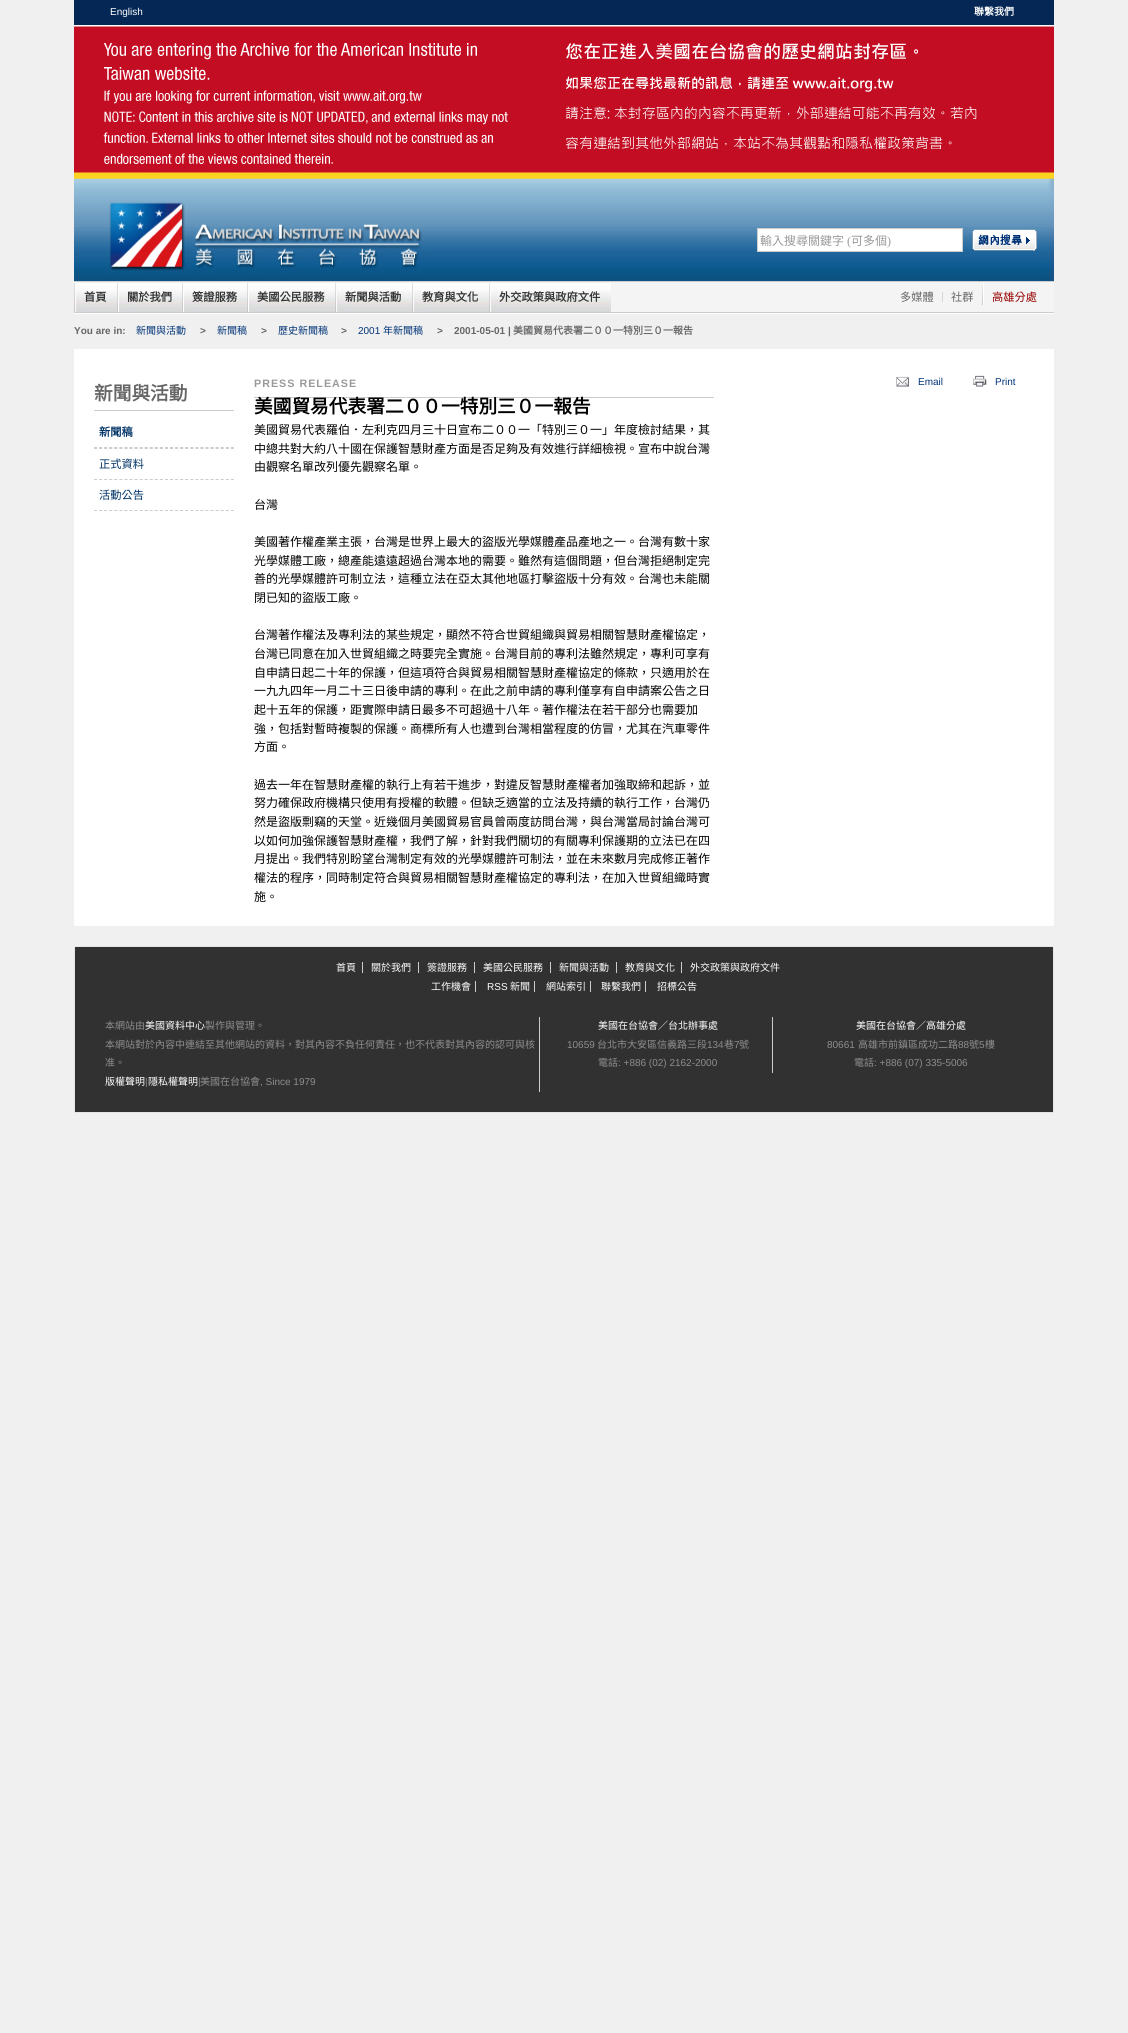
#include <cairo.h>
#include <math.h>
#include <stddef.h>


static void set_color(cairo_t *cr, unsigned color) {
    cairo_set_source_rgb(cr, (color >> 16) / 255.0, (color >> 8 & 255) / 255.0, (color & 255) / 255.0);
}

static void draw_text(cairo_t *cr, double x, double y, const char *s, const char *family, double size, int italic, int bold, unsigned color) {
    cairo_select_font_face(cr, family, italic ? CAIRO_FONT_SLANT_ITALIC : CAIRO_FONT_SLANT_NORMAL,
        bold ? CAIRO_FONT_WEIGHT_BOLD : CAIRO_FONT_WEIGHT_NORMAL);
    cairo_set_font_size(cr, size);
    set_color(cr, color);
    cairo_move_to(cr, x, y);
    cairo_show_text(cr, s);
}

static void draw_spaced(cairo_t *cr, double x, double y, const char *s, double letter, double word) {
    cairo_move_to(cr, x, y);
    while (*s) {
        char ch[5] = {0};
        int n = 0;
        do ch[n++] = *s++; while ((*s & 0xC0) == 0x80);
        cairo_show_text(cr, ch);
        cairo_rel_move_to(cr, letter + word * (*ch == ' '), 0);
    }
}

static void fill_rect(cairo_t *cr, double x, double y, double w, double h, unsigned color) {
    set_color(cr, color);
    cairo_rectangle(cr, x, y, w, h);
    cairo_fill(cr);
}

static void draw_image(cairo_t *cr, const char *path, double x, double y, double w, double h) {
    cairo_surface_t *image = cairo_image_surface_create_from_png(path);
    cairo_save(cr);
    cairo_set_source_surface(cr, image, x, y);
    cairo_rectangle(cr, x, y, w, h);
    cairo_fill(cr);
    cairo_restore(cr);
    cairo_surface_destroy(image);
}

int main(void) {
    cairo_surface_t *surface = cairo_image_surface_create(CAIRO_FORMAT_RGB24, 1128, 2033);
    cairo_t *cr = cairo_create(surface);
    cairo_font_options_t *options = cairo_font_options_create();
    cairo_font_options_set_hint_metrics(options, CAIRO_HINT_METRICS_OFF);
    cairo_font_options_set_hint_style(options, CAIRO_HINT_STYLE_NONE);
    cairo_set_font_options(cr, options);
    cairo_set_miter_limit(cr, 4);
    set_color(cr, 0xF0F0F0);
    cairo_paint(cr);
    fill_rect(cr, 74, 0, 980, 25, 0x052755);
    fill_rect(cr, 74, 25, 980, 1, 0xFFFFFF);
    draw_text(cr, 110, 15, "English", "Liberation Sans", 10, 0, 0, 0xFFFFFF);
    draw_text(cr, 974, 15, "聯繫我們", "Noto Sans CJK TC", 10, 0, 1, 0xFFFFFF);
    draw_image(cr, "assets/img1.png", 74, 26, 980, 255);
    cairo_rectangle(cr, 757.5, 228.5, 205, 23);
    cairo_fill_preserve(cr);
    set_color(cr, 0xCCCCCC);
    cairo_set_line_width(cr, 1);
    cairo_stroke(cr);
    draw_text(cr, 760, 245, "輸入搜尋關鍵字", "Noto Sans CJK TC", 12, 0, 0, 0x999999);
    draw_text(cr, 847, 245, "(", "Liberation Serif", 12, 0, 0, 0x999999);
    draw_text(cr, 851, 245, "可多個", "Noto Sans CJK TC", 12, 0, 0, 0x999999);
    draw_text(cr, 887, 245, ")", "Liberation Serif", 12, 0, 0, 0x999999);
    draw_image(cr, "assets/img2.png", 972, 229, 65, 22);
    fill_rect(cr, 74, 282, 980, 30, 0xF4F4F4);
    fill_rect(cr, 74, 281, 980, 1, 0xCCCCCC);
    fill_rect(cr, 74, 312, 980, 1, 0xCCCCCC);
    draw_image(cr, "assets/img3.png", 74, 283, 43, 29);
    draw_text(cr, 84, 301, "首頁", "Noto Sans CJK TC", 11.25, 0, 1, 0x333333);
    draw_image(cr, "assets/img4.png", 117, 283, 65, 29);
    draw_text(cr, 127, 301, "關於我們", "Noto Sans CJK TC", 11.25, 0, 1, 0x333333);
    draw_image(cr, "assets/img4.png", 182, 283, 65, 29);
    draw_text(cr, 192, 301, "簽證服務", "Noto Sans CJK TC", 11.25, 0, 1, 0x333333);
    draw_image(cr, "assets/img5.png", 247, 283, 88, 29);
    draw_text(cr, 257, 301, "美國公民服務", "Noto Sans CJK TC", 11.25, 0, 1, 0x333333);
    draw_image(cr, "assets/img6.png", 335, 283, 77, 29);
    draw_text(cr, 345, 301, "新聞與活動", "Noto Sans CJK TC", 11.25, 0, 1, 0x333333);
    draw_image(cr, "assets/img6.png", 412, 283, 77, 29);
    draw_text(cr, 422, 301, "教育與文化", "Noto Sans CJK TC", 11.25, 0, 1, 0x333333);
    draw_image(cr, "assets/img7.png", 489, 283, 122, 29);
    draw_text(cr, 499, 301, "外交政策與政府文件", "Noto Sans CJK TC", 11.25, 0, 1, 0x333333);
    draw_text(cr, 900, 301, "多媒體", "Noto Sans CJK TC", 11.25, 0, 0, 0x666666);
    draw_image(cr, "assets/img8.png", 942, 292, 1, 10);
    draw_text(cr, 951, 301, "社群", "Noto Sans CJK TC", 11.25, 0, 0, 0x666666);
    draw_image(cr, "assets/img9.png", 982, 282, 2, 23);
    draw_text(cr, 992, 301, "高雄分處", "Noto Sans CJK TC", 11.25, 0, 0, 0x990000);
    fill_rect(cr, 74, 313, 980, 1, 0xFFFFFF);
    draw_text(cr, 74, 334, "You are in:", "Liberation Sans", 10, 0, 1, 0x666666);
    draw_text(cr, 136, 334, "新聞與活動", "Noto Sans CJK TC", 10, 0, 0, 0x003377);
    draw_text(cr, 200, 334, ">", "Liberation Sans", 10, 0, 1, 0x666666);
    draw_text(cr, 217, 334, "新聞稿", "Noto Sans CJK TC", 10, 0, 0, 0x003377);
    draw_text(cr, 261, 334, ">", "Liberation Sans", 10, 0, 1, 0x666666);
    draw_text(cr, 278, 334, "歷史新聞稿", "Noto Sans CJK TC", 10, 0, 0, 0x003377);
    draw_text(cr, 341, 334, ">", "Liberation Sans", 10, 0, 1, 0x666666);
    draw_text(cr, 358, 334, "2001", "Liberation Sans", 10, 0, 0, 0x003377);
    draw_text(cr, 383, 334, "年新聞稿", "Noto Sans CJK TC", 10, 0, 0, 0x003377);
    draw_text(cr, 437, 334, ">", "Liberation Sans", 10, 0, 1, 0x666666);
    draw_text(cr, 454, 334, "2001-05-01 |", "Liberation Sans", 10, 0, 1, 0x666666);
    draw_text(cr, 513, 334, "美國貿易代表署二００一特別三０一報告", "Noto Sans CJK TC", 10, 0, 1, 0x666666);
    fill_rect(cr, 74, 349, 980, 577, 0xFFFFFF);
    fill_rect(cr, 94, 410, 140, 1, 0xCCCCCC);
    draw_text(cr, 94, 400, "新聞與活動", "Noto Sans CJK TC", 18.7, 0, 1, 0x666666);
    cairo_new_path(cr);
    cairo_move_to(cr, 94, 448.5);
    cairo_line_to(cr, 234, 448.5);
    set_color(cr, 0xCCCCCC);
    cairo_set_dash(cr, (double[]){3, 2.07}, 2, 0);
    cairo_stroke(cr);
    cairo_new_path(cr);
    cairo_move_to(cr, 94, 447.5);
    cairo_line_to(cr, 234, 447.5);
    cairo_stroke(cr);
    draw_text(cr, 99, 436, "新聞稿", "Noto Sans CJK TC", 11.25, 0, 1, 0x003366);
    cairo_new_path(cr);
    cairo_move_to(cr, 94, 479.5);
    cairo_line_to(cr, 234, 479.5);
    set_color(cr, 0xCCCCCC);
    cairo_stroke(cr);
    draw_text(cr, 99, 468, "正式資料", "Noto Sans CJK TC", 11.25, 0, 0, 0x003366);
    cairo_new_path(cr);
    cairo_move_to(cr, 94, 510.5);
    cairo_line_to(cr, 234, 510.5);
    set_color(cr, 0xCCCCCC);
    cairo_stroke(cr);
    draw_text(cr, 99, 499, "活動公告", "Noto Sans CJK TC", 11.25, 0, 0, 0x003366);
    fill_rect(cr, 254, 397, 460, 1, 0xCCCCCC);
    cairo_select_font_face(cr, "Liberation Sans", CAIRO_FONT_SLANT_NORMAL, CAIRO_FONT_WEIGHT_BOLD);
    cairo_set_font_size(cr, 10.75);
    set_color(cr, 0x999999);
    draw_spaced(cr, 254, 387, "PRESS RELEASE", 1, 0);
    draw_text(cr, 254, 413, "美國貿易代表署二００一特別三０一報告", "Noto Sans CJK TC", 18.7, 0, 1, 0x000000);
    draw_text(cr, 254, 434, "美國貿易代表羅伯．左利克四月三十日宣布二００一「特別三０一」年度檢討結果，其", "Noto Sans CJK TC", 12, 0, 0, 0x000000);
    draw_text(cr, 254, 453, "中總共對大約八十國在保護智慧財產方面是否足夠及有效進行詳細檢視。宣布中說台灣", "Noto Sans CJK TC", 12, 0, 0, 0x000000);
    draw_text(cr, 254, 471, "由觀察名單改列優先觀察名單。", "Noto Sans CJK TC", 12, 0, 0, 0x000000);
    draw_text(cr, 254, 509, "台灣", "Noto Sans CJK TC", 12, 0, 0, 0x000000);
    draw_text(cr, 254, 546, "美國著作權產業主張，台灣是世界上最大的盜版光學媒體產品產地之一。台灣有數十家", "Noto Sans CJK TC", 12, 0, 0, 0x000000);
    draw_text(cr, 254, 565, "光學媒體工廠，總產能遠遠超過台灣本地的需要。雖然有這個問題，但台灣拒絕制定完", "Noto Sans CJK TC", 12, 0, 0, 0x000000);
    draw_text(cr, 254, 583, "善的光學媒體許可制立法，這種立法在亞太其他地區打擊盜版十分有效。台灣也未能關", "Noto Sans CJK TC", 12, 0, 0, 0x000000);
    draw_text(cr, 254, 602, "閉已知的盜版工廠。", "Noto Sans CJK TC", 12, 0, 0, 0x000000);
    draw_text(cr, 254, 639, "台灣著作權法及專利法的某些規定，顯然不符合世貿組織與貿易相關智慧財產權協定，", "Noto Sans CJK TC", 12, 0, 0, 0x000000);
    draw_text(cr, 254, 658, "台灣已同意在加入世貿組織之時要完全實施。台灣目前的專利法雖然規定，專利可享有", "Noto Sans CJK TC", 12, 0, 0, 0x000000);
    draw_text(cr, 254, 677, "自申請日起二十年的保護，但這項符合與貿易相關智慧財產權協定的條款，只適用於在", "Noto Sans CJK TC", 12, 0, 0, 0x000000);
    draw_text(cr, 254, 695, "一九九四年一月二十三日後申請的專利。在此之前申請的專利僅享有自申請案公告之日", "Noto Sans CJK TC", 12, 0, 0, 0x000000);
    draw_text(cr, 254, 714, "起十五年的保護，距實際申請日最多不可超過十八年。著作權法在若干部分也需要加", "Noto Sans CJK TC", 12, 0, 0, 0x000000);
    draw_text(cr, 254, 733, "強，包括對暫時複製的保護。商標所有人也遭到台灣相當程度的仿冒，尤其在汽車零件", "Noto Sans CJK TC", 12, 0, 0, 0x000000);
    draw_text(cr, 254, 751, "方面。", "Noto Sans CJK TC", 12, 0, 0, 0x000000);
    draw_text(cr, 254, 789, "過去一年在智慧財產權的執行上有若干進步，對違反智慧財產權者加強取締和起訴，並", "Noto Sans CJK TC", 12, 0, 0, 0x000000);
    draw_text(cr, 254, 807, "努力確保政府機構只使用有授權的軟體。但缺乏適當的立法及持續的執行工作，台灣仍", "Noto Sans CJK TC", 12, 0, 0, 0x000000);
    draw_text(cr, 254, 826, "然是盜版剽竊的天堂。近幾個月美國貿易官員曾兩度訪問台灣，與台灣當局討論台灣可", "Noto Sans CJK TC", 12, 0, 0, 0x000000);
    draw_text(cr, 254, 845, "以如何加強保護智慧財產權，我們了解，針對我們關切的有關專利保護期的立法已在四", "Noto Sans CJK TC", 12, 0, 0, 0x000000);
    draw_text(cr, 254, 863, "月提出。我們特別盼望台灣制定有效的光學媒體許可制法，並在未來數月完成修正著作", "Noto Sans CJK TC", 12, 0, 0, 0x000000);
    draw_text(cr, 254, 882, "權法的程序，同時制定符合與貿易相關智慧財產權協定的專利法，在加入世貿組織時實", "Noto Sans CJK TC", 12, 0, 0, 0x000000);
    draw_text(cr, 254, 901, "施。", "Noto Sans CJK TC", 12, 0, 0, 0x000000);
    draw_image(cr, "assets/img10.png", 896, 376, 13, 11);
    draw_text(cr, 918, 385, "Email", "Liberation Sans", 10, 0, 0, 0x003377);
    draw_image(cr, "assets/img11.png", 973, 375, 14, 12);
    draw_text(cr, 995, 385, "Print", "Liberation Sans", 10, 0, 0, 0x003377);
    set_color(cr, 0x313131);
    cairo_rectangle(cr, 74.5, 946.5, 979, 166);
    cairo_fill_preserve(cr);
    set_color(cr, 0xE5E5E5);
    cairo_set_dash(cr, NULL, 0, 0);
    cairo_stroke(cr);
    draw_text(cr, 336, 971, "首頁", "Noto Sans CJK TC", 10, 0, 0, 0xFFFFFF);
    fill_rect(cr, 362, 962, 1, 11, 0xCCCCCC);
    draw_text(cr, 371, 971, "關於我們", "Noto Sans CJK TC", 10, 0, 0, 0xFFFFFF);
    fill_rect(cr, 418, 962, 1, 11, 0xCCCCCC);
    draw_text(cr, 427, 971, "簽證服務", "Noto Sans CJK TC", 10, 0, 0, 0xFFFFFF);
    fill_rect(cr, 474, 962, 1, 11, 0xCCCCCC);
    draw_text(cr, 483, 971, "美國公民服務", "Noto Sans CJK TC", 10, 0, 0, 0xFFFFFF);
    fill_rect(cr, 550, 962, 1, 11, 0xCCCCCC);
    draw_text(cr, 559, 971, "新聞與活動", "Noto Sans CJK TC", 10, 0, 0, 0xFFFFFF);
    fill_rect(cr, 616, 962, 1, 11, 0xCCCCCC);
    draw_text(cr, 625, 971, "教育與文化", "Noto Sans CJK TC", 10, 0, 0, 0xFFFFFF);
    fill_rect(cr, 681, 962, 1, 11, 0xCCCCCC);
    draw_text(cr, 690, 971, "外交政策與政府文件", "Noto Sans CJK TC", 10, 0, 0, 0xFFFFFF);
    draw_text(cr, 431, 990, "工作機會", "Noto Sans CJK TC", 10, 0, 0, 0xFFFFFF);
    fill_rect(cr, 475, 981, 1, 11, 0xCCCCCC);
    draw_text(cr, 487, 990, "RSS", "Liberation Sans", 10, 0, 0, 0xFFFFFF);
    draw_text(cr, 510, 990, "新聞", "Noto Sans CJK TC", 10, 0, 0, 0xFFFFFF);
    fill_rect(cr, 534, 981, 1, 11, 0xCCCCCC);
    draw_text(cr, 546, 990, "網站索引", "Noto Sans CJK TC", 10, 0, 0, 0xFFFFFF);
    fill_rect(cr, 590, 981, 1, 11, 0xCCCCCC);
    draw_text(cr, 601, 990, "聯繫我們", "Noto Sans CJK TC", 10, 0, 0, 0xFFFFFF);
    fill_rect(cr, 645, 981, 1, 11, 0xCCCCCC);
    draw_text(cr, 657, 990, "招標公告", "Noto Sans CJK TC", 10, 0, 0, 0xFFFFFF);
    fill_rect(cr, 539, 1017, 1, 75, 0xCCCCCC);
    draw_text(cr, 105, 1029, "本網站由", "Noto Sans CJK TC", 10, 0, 0, 0x8E8E8E);
    draw_text(cr, 145, 1029, "美國資料中心", "Noto Sans CJK TC", 10, 0, 0, 0xFFFFFF);
    draw_text(cr, 205, 1029, "製作與管理。", "Noto Sans CJK TC", 10, 0, 0, 0x8E8E8E);
    draw_text(cr, 105, 1048, "本網站對於內容中連結至其他網站的資料，對其內容不負任何責任，也不代表對其內容的認可與核", "Noto Sans CJK TC", 10, 0, 0, 0x8E8E8E);
    draw_text(cr, 105, 1066, "准。", "Noto Sans CJK TC", 10, 0, 0, 0x8E8E8E);
    draw_text(cr, 105, 1085, "版權聲明", "Noto Sans CJK TC", 10, 0, 0, 0xFFFFFF);
    draw_text(cr, 145, 1085, "|", "Liberation Sans", 10, 0, 0, 0x8E8E8E);
    draw_text(cr, 148, 1085, "隱私權聲明", "Noto Sans CJK TC", 10, 0, 0, 0xFFFFFF);
    draw_text(cr, 198, 1085, "|", "Liberation Sans", 10, 0, 0, 0x8E8E8E);
    draw_text(cr, 200, 1085, "美國在台協會", "Noto Sans CJK TC", 10, 0, 0, 0x8E8E8E);
    draw_text(cr, 260, 1085, ", Since 1979", "Liberation Sans", 10, 0, 0, 0x8E8E8E);
    fill_rect(cr, 772, 1017, 1, 56, 0xCCCCCC);
    draw_text(cr, 598, 1029, "美國在台協會／台北辦事處", "Noto Sans CJK TC", 10, 0, 0, 0xFFFFFF);
    draw_text(cr, 567, 1048, "10659", "Liberation Sans", 10, 0, 0, 0x8E8E8E);
    draw_text(cr, 597, 1048, "台北市大安區信義路三段", "Noto Sans CJK TC", 10, 0, 0, 0x8E8E8E);
    draw_text(cr, 707, 1048, "134", "Liberation Sans", 10, 0, 0, 0x8E8E8E);
    draw_text(cr, 724, 1048, "巷", "Noto Sans CJK TC", 10, 0, 0, 0x8E8E8E);
    draw_text(cr, 734, 1048, "7", "Liberation Sans", 10, 0, 0, 0x8E8E8E);
    draw_text(cr, 739, 1048, "號", "Noto Sans CJK TC", 10, 0, 0, 0x8E8E8E);
    draw_text(cr, 598, 1066, "電話", "Noto Sans CJK TC", 10, 0, 0, 0x8E8E8E);
    draw_text(cr, 618, 1066, ": +886 (02) 2162-2000", "Liberation Sans", 10, 0, 0, 0x8E8E8E);
    draw_text(cr, 856, 1029, "美國在台協會／高雄分處", "Noto Sans CJK TC", 10, 0, 0, 0xFFFFFF);
    draw_text(cr, 827, 1048, "80661", "Liberation Sans", 10, 0, 0, 0x8E8E8E);
    draw_text(cr, 858, 1048, "高雄市前鎮區成功二路", "Noto Sans CJK TC", 10, 0, 0, 0x8E8E8E);
    draw_text(cr, 958, 1048, "88", "Liberation Sans", 10, 0, 0, 0x8E8E8E);
    draw_text(cr, 969, 1048, "號", "Noto Sans CJK TC", 10, 0, 0, 0x8E8E8E);
    draw_text(cr, 979, 1048, "5", "Liberation Sans", 10, 0, 0, 0x8E8E8E);
    draw_text(cr, 985, 1048, "樓", "Noto Sans CJK TC", 10, 0, 0, 0x8E8E8E);
    draw_text(cr, 854, 1066, "電話", "Noto Sans CJK TC", 10, 0, 0, 0x8E8E8E);
    draw_text(cr, 874, 1066, ": +886 (07) 335-5006", "Liberation Sans", 10, 0, 0, 0x8E8E8E);
    cairo_surface_write_to_png(surface, "output.png");
    cairo_font_options_destroy(options);
    cairo_destroy(cr);
    cairo_surface_destroy(surface);
    return 0;
}
